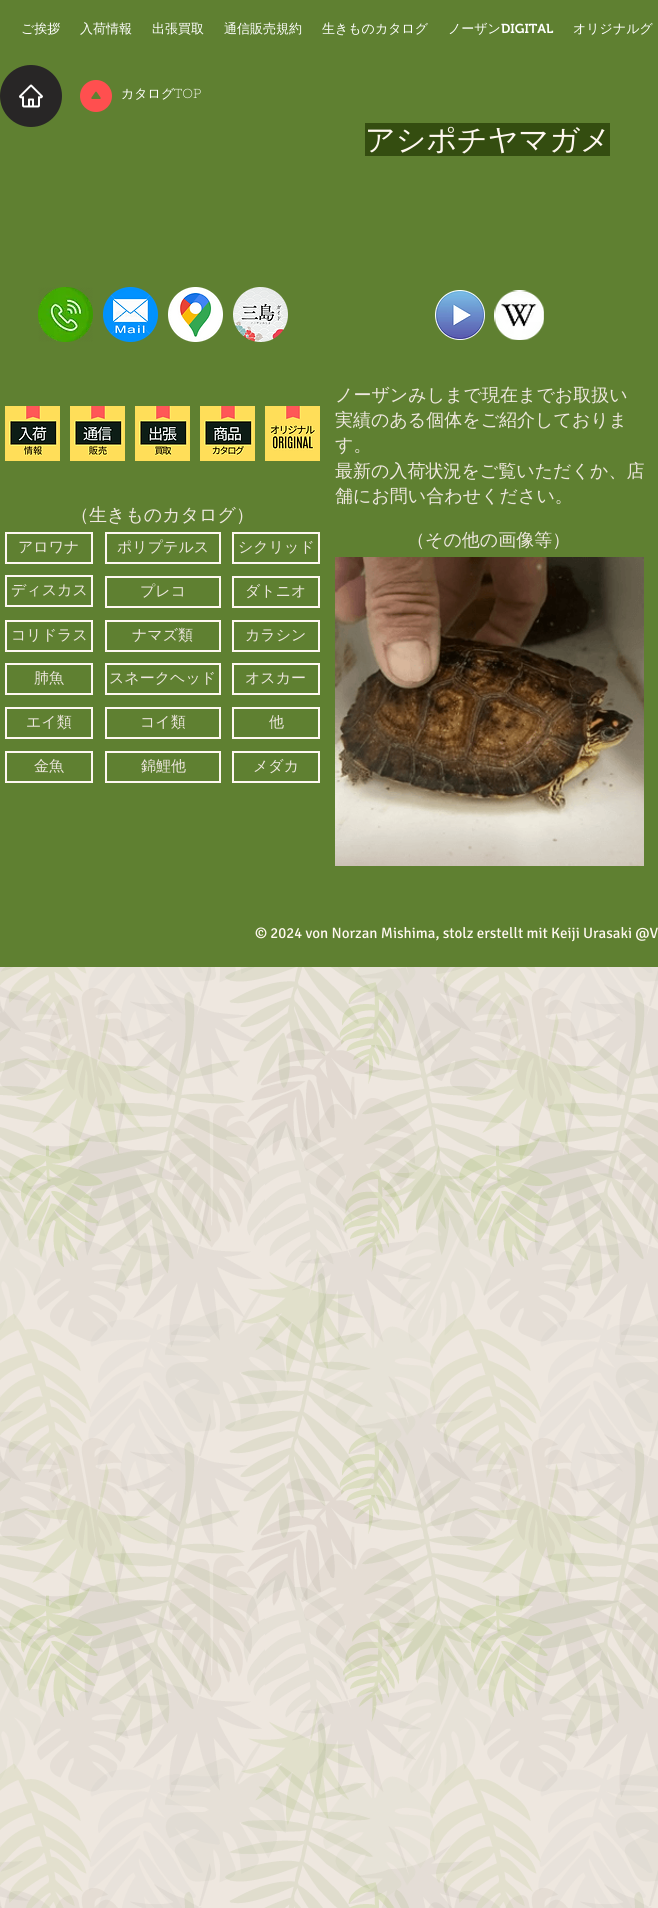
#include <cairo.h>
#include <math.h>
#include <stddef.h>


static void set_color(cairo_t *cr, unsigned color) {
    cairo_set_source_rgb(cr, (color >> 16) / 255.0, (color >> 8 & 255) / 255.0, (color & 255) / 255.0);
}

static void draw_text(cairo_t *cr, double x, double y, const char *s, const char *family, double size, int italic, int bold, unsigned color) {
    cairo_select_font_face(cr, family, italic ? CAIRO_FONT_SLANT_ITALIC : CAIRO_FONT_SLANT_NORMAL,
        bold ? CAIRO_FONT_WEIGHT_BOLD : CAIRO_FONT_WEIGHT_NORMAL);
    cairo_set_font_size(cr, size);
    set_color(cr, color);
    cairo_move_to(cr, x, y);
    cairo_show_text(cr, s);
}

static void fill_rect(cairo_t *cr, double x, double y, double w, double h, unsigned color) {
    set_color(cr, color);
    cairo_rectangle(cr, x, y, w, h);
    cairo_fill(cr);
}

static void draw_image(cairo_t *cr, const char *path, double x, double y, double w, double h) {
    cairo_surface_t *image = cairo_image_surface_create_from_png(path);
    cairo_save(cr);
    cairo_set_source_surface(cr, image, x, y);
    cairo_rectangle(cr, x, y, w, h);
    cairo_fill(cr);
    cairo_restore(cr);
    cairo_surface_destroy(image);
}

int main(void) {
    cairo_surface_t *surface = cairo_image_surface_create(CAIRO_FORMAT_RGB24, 658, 1908);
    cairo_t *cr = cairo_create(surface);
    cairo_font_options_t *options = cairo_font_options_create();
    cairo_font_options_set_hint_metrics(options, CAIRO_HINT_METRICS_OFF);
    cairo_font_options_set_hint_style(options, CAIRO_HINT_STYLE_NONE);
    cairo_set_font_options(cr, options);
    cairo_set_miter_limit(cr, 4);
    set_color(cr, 0xEEE7DF);
    cairo_paint(cr);
    fill_rect(cr, 0, 0, 658, 54, 0x5F8031);
    draw_text(cr, 21, 33, "ご挨拶", "WenQuanYi Zen Hei Medium", 13, 0, 0, 0xFFFFFF);
    draw_text(cr, 80, 33, "入荷情報", "WenQuanYi Zen Hei Medium", 13, 0, 0, 0xFFFFFF);
    draw_text(cr, 152, 33, "出張買取", "WenQuanYi Zen Hei Medium", 13, 0, 0, 0xFFFFFF);
    draw_text(cr, 224, 33, "通信販売規約", "WenQuanYi Zen Hei Medium", 13, 0, 0, 0xFFFFFF);
    draw_text(cr, 322, 33, "生きものカタログ", "WenQuanYi Zen Hei Medium", 13, 0, 0, 0xFFFFFF);
    draw_text(cr, 448, 33, "ノーザン", "WenQuanYi Zen Hei Medium", 13, 0, 0, 0xFFFFFF);
    draw_text(cr, 501, 33, "DIGITAL", "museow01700 SemiBold", 13, 0, 0, 0xFFFFFF);
    draw_text(cr, 573, 33, "オリジナルグ", "WenQuanYi Zen Hei Medium", 13, 0, 0, 0xFFFFFF);
    fill_rect(cr, 0, 54, 658, 311, 0x5F8031);
    set_color(cr, 0x282626);
    cairo_new_path(cr);
    cairo_arc(cr, 31, 96, 31, 0, 2 * M_PI);
    cairo_fill(cr);
    draw_image(cr, "assets/img1.png", 19, 84, 24, 24);
    draw_image(cr, "assets/img2.png", 80, 80, 32, 32);
    draw_text(cr, 121, 98, "カタログ", "WenQuanYi Zen Hei Medium", 13, 0, 0, 0xFFFFFF);
    draw_text(cr, 174, 98, "TOP", "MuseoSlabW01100 Thin", 13, 0, 0, 0xFFFFFF);
    draw_image(cr, "assets/img3.png", 38, 287, 55, 55);
    draw_image(cr, "assets/img4.png", 103, 287, 55, 55);
    draw_image(cr, "assets/img5.png", 168, 287, 55, 55);
    draw_image(cr, "assets/img6.png", 233, 287, 55, 55);
    fill_rect(cr, 365, 123, 245, 33, 0x344D10);
    draw_text(cr, 365, 150, "アシポチヤマガメ", "WenQuanYi Zen Hei Medium", 30, 0, 0, 0xFFF8F0);
    draw_image(cr, "assets/img7.png", 435, 290, 50, 50);
    draw_image(cr, "assets/img8.png", 494, 290, 50, 50);
    fill_rect(cr, 0, 365, 658, 602, 0x5F8031);
    draw_text(cr, 335, 401, "ノーザンみしまで現在までお取扱い", "WenQuanYi Zen Hei Medium", 18, 0, 0, 0xEEE7DF);
    draw_text(cr, 335, 426, "実績のある個体をご紹介しておりま", "WenQuanYi Zen Hei Medium", 18, 0, 0, 0xEEE7DF);
    draw_text(cr, 335, 451, "す。", "WenQuanYi Zen Hei Medium", 18, 0, 0, 0xEEE7DF);
    draw_text(cr, 335, 477, "最新の入荷状況をご覧いただくか、店", "WenQuanYi Zen Hei Medium", 18, 0, 0, 0xEEE7DF);
    draw_text(cr, 335, 502, "舗にお問い合わせください。", "WenQuanYi Zen Hei Medium", 18, 0, 0, 0xEEE7DF);
    draw_text(cr, 407, 546, "（その他の画像等）", "WenQuanYi Zen Hei Medium", 18, 0, 0, 0xEEE7DF);
    draw_image(cr, "assets/img9.png", 335, 557, 309, 309);
    draw_image(cr, "assets/img10.png", 5, 406, 55, 55);
    draw_image(cr, "assets/img11.png", 70, 406, 55, 55);
    draw_image(cr, "assets/img12.png", 135, 406, 55, 55);
    draw_image(cr, "assets/img13.png", 200, 406, 55, 55);
    draw_image(cr, "assets/img14.png", 265, 406, 55, 55);
    draw_text(cr, 71, 521, "（生きものカタログ）", "WenQuanYi Zen Hei Medium", 18, 0, 0, 0xEEE7DF);
    cairo_rectangle(cr, 6, 533, 86, 30);
    set_color(cr, 0xFFF8F0);
    cairo_stroke(cr);
    draw_text(cr, 18, 552, "アロワナ", "WenQuanYi Zen Hei Medium", 15, 0, 0, 0xEEE7DF);
    cairo_rectangle(cr, 106, 533, 114, 30);
    set_color(cr, 0xFFF8F0);
    cairo_stroke(cr);
    draw_text(cr, 117, 552, "ポリプテルス", "WenQuanYi Zen Hei Medium", 15, 0, 0, 0xEEE7DF);
    cairo_rectangle(cr, 233, 533, 86, 30);
    set_color(cr, 0xFFF8F0);
    cairo_stroke(cr);
    draw_text(cr, 238, 552, "シクリッド", "WenQuanYi Zen Hei Medium", 15, 0, 0, 0xEEE7DF);
    cairo_rectangle(cr, 6, 576, 86, 30);
    set_color(cr, 0xFFF8F0);
    cairo_stroke(cr);
    draw_text(cr, 11, 595, "ディスカス", "WenQuanYi Zen Hei Medium", 15, 0, 0, 0xEEE7DF);
    cairo_rectangle(cr, 106, 577, 114, 30);
    set_color(cr, 0xFFF8F0);
    cairo_stroke(cr);
    draw_text(cr, 140, 596, "プレコ", "WenQuanYi Zen Hei Medium", 15, 0, 0, 0xEEE7DF);
    cairo_rectangle(cr, 233, 577, 86, 30);
    set_color(cr, 0xFFF8F0);
    cairo_stroke(cr);
    draw_text(cr, 245, 596, "ダトニオ", "WenQuanYi Zen Hei Medium", 15, 0, 0, 0xEEE7DF);
    cairo_rectangle(cr, 6, 621, 86, 30);
    set_color(cr, 0xFFF8F0);
    cairo_stroke(cr);
    draw_text(cr, 11, 640, "コリドラス", "WenQuanYi Zen Hei Medium", 15, 0, 0, 0xEEE7DF);
    cairo_rectangle(cr, 106, 621, 114, 30);
    set_color(cr, 0xFFF8F0);
    cairo_stroke(cr);
    draw_text(cr, 132, 640, "ナマズ類", "WenQuanYi Zen Hei Medium", 15, 0, 0, 0xEEE7DF);
    cairo_rectangle(cr, 233, 621, 86, 30);
    set_color(cr, 0xFFF8F0);
    cairo_stroke(cr);
    draw_text(cr, 245, 640, "カラシン", "WenQuanYi Zen Hei Medium", 15, 0, 0, 0xEEE7DF);
    cairo_rectangle(cr, 6, 664, 86, 30);
    set_color(cr, 0xFFF8F0);
    cairo_stroke(cr);
    draw_text(cr, 34, 683, "肺魚", "WenQuanYi Zen Hei Medium", 15, 0, 0, 0xEEE7DF);
    cairo_rectangle(cr, 106, 664, 114, 30);
    set_color(cr, 0xFFF8F0);
    cairo_stroke(cr);
    draw_text(cr, 109, 683, "スネークヘッド", "WenQuanYi Zen Hei Medium", 15, 0, 0, 0xEEE7DF);
    cairo_rectangle(cr, 233, 664, 86, 30);
    set_color(cr, 0xFFF8F0);
    cairo_stroke(cr);
    draw_text(cr, 245, 683, "オスカー", "WenQuanYi Zen Hei Medium", 15, 0, 0, 0xEEE7DF);
    cairo_rectangle(cr, 6, 708, 86, 30);
    set_color(cr, 0xFFF8F0);
    cairo_stroke(cr);
    draw_text(cr, 26, 727, "エイ類", "WenQuanYi Zen Hei Medium", 15, 0, 0, 0xEEE7DF);
    cairo_rectangle(cr, 106, 708, 114, 30);
    set_color(cr, 0xFFF8F0);
    cairo_stroke(cr);
    draw_text(cr, 140, 727, "コイ類", "WenQuanYi Zen Hei Medium", 15, 0, 0, 0xEEE7DF);
    cairo_rectangle(cr, 233, 708, 86, 30);
    set_color(cr, 0xFFF8F0);
    cairo_stroke(cr);
    draw_text(cr, 269, 727, "他", "WenQuanYi Zen Hei Medium", 15, 0, 0, 0xEEE7DF);
    cairo_rectangle(cr, 6, 752, 86, 30);
    set_color(cr, 0xFFF8F0);
    cairo_stroke(cr);
    draw_text(cr, 34, 771, "金魚", "WenQuanYi Zen Hei Medium", 15, 0, 0, 0xEEE7DF);
    cairo_rectangle(cr, 106, 752, 114, 30);
    set_color(cr, 0xFFF8F0);
    cairo_stroke(cr);
    draw_text(cr, 141, 771, "錦鯉他", "WenQuanYi Zen Hei Medium", 15, 0, 0, 0xEEE7DF);
    cairo_rectangle(cr, 233, 752, 86, 30);
    set_color(cr, 0xFFF8F0);
    cairo_stroke(cr);
    draw_text(cr, 253, 771, "メダカ", "WenQuanYi Zen Hei Medium", 15, 0, 0, 0xEEE7DF);
    draw_text(cr, 255, 938, "© 2024 von Norzan Mishima, stolz erstellt mit Keiji Urasaki @V", "Signika", 15, 0, 0, 0xFFF8F0);
    draw_image(cr, "assets/img15.png", 0, 967, 658, 941);
    cairo_surface_write_to_png(surface, "output.png");
    cairo_font_options_destroy(options);
    cairo_destroy(cr);
    cairo_surface_destroy(surface);
    return 0;
}
